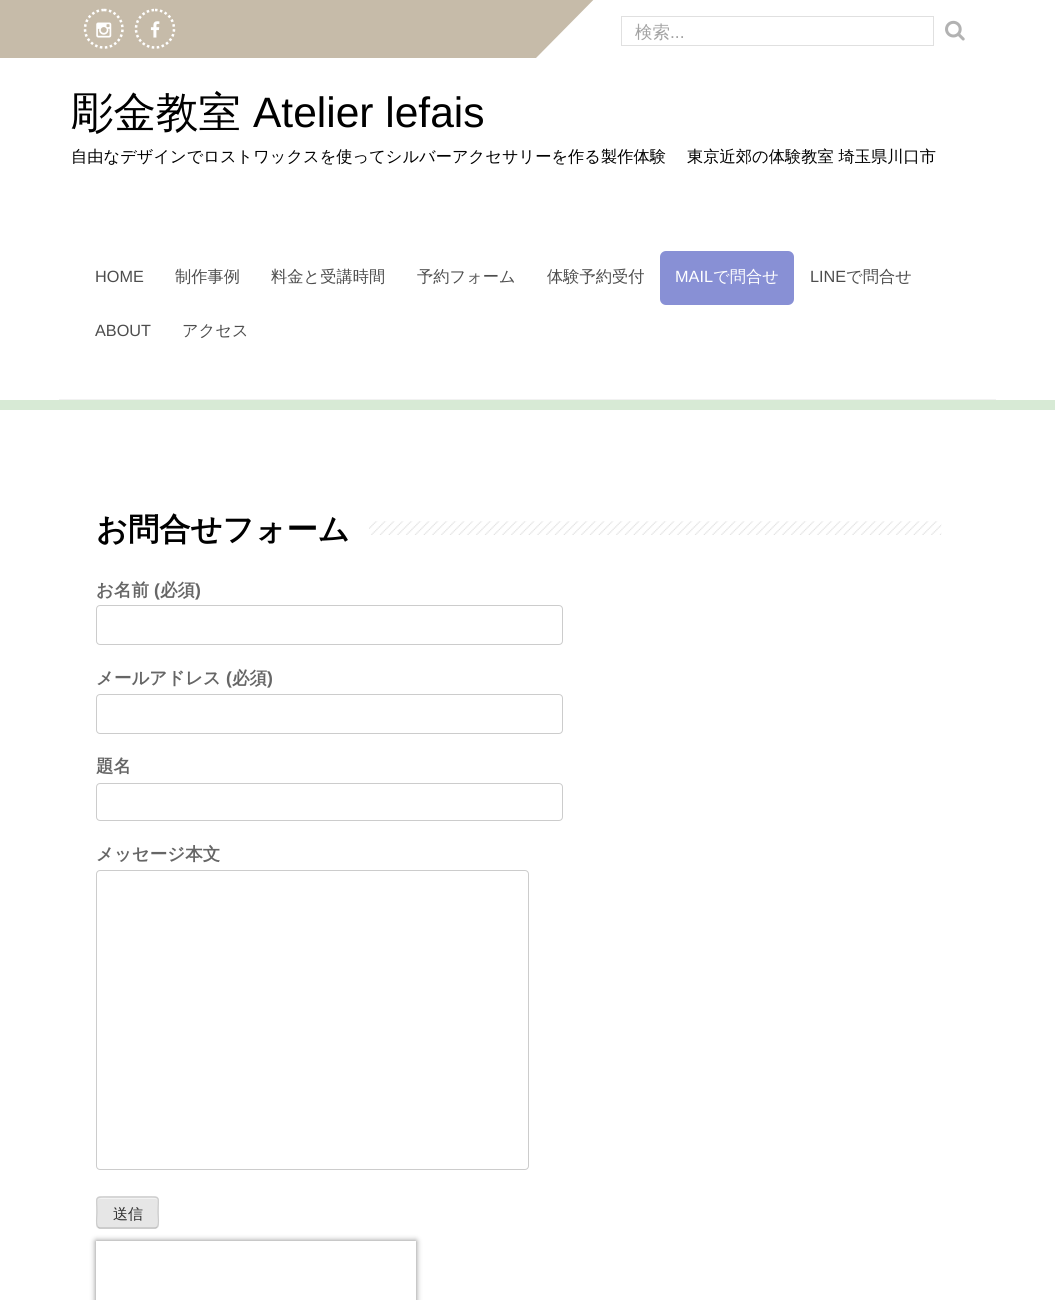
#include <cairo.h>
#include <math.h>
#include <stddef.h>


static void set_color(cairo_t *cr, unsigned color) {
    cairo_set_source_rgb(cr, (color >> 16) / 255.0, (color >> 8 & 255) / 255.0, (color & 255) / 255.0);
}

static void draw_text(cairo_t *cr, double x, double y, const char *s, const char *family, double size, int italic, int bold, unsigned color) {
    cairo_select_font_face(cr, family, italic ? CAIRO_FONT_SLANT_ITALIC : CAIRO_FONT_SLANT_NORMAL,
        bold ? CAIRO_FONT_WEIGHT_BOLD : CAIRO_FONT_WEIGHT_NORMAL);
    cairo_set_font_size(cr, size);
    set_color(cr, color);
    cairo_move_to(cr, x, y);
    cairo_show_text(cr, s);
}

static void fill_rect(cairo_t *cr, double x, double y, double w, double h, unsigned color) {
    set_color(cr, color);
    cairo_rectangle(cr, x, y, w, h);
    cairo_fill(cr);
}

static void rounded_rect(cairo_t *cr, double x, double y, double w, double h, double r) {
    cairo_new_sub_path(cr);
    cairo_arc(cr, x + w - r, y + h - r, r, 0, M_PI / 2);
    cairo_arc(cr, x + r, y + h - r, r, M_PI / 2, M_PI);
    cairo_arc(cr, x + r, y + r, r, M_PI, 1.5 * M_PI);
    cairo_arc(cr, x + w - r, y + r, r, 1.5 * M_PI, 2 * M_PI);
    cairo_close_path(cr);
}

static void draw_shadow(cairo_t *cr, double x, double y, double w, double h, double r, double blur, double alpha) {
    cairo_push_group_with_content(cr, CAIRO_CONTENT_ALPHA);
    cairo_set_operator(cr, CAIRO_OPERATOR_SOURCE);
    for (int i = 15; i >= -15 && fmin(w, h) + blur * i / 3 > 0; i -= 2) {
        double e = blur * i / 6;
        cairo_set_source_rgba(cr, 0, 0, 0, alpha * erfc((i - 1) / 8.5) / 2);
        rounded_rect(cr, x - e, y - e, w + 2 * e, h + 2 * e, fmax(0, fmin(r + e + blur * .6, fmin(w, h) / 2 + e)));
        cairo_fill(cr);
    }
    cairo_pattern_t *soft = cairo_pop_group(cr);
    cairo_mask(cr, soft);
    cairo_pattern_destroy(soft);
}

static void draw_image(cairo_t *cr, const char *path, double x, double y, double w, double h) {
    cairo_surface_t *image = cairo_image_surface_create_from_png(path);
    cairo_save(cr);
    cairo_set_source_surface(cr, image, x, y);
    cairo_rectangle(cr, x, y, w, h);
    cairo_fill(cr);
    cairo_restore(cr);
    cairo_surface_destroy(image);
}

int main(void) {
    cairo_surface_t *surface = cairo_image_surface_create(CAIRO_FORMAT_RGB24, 1055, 1300);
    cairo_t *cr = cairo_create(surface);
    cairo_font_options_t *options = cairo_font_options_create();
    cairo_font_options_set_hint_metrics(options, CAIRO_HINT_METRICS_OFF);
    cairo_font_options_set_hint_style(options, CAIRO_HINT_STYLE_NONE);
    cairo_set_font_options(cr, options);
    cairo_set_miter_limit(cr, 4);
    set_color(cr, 0xFFFFFF);
    cairo_paint(cr);
    fill_rect(cr, 0, 0, 594, 58, 0xC6BBA9);
    cairo_new_path(cr);
    cairo_move_to(cr, 104, 10);
    cairo_curve_to(cr, 114, 10, 122.5, 18.5, 122.5, 29);
    cairo_curve_to(cr, 122.5, 39, 114, 47.5, 104, 47.5);
    cairo_curve_to(cr, 93.5, 47.5, 85, 39, 85, 29);
    cairo_curve_to(cr, 85, 18.5, 93.5, 10, 104, 10);
    cairo_close_path(cr);
    set_color(cr, 0xFFFFFF);
    cairo_set_line_width(cr, 2.5);
    cairo_set_dash(cr, (double[]){2.5, 2.5}, 2, 0);
    cairo_stroke(cr);
    draw_image(cr, "assets/img1.png", 96, 22, 16, 16);
    cairo_new_path(cr);
    cairo_move_to(cr, 155, 10);
    cairo_curve_to(cr, 165.5, 10, 174, 18.5, 174, 29);
    cairo_curve_to(cr, 174, 39, 165.5, 47.5, 155, 47.5);
    cairo_curve_to(cr, 144.5, 47.5, 136, 39, 136, 29);
    cairo_curve_to(cr, 136, 18.5, 144.5, 10, 155, 10);
    cairo_close_path(cr);
    cairo_stroke(cr);
    draw_image(cr, "assets/img2.png", 150, 21, 10, 17);
    cairo_new_path(cr);
    cairo_move_to(cr, 536, 58);
    cairo_line_to(cr, 615, -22);
    cairo_line_to(cr, 615, 58);
    cairo_close_path(cr);
    cairo_fill(cr);
    cairo_rectangle(cr, 621.5, 16.5, 312, 29);
    set_color(cr, 0xE0E0E0);
    cairo_set_line_width(cr, 1);
    cairo_set_dash(cr, NULL, 0, 0);
    cairo_stroke(cr);
    draw_text(cr, 635, 38, "検索", "WenQuanYi Zen Hei Medium", 17.5, 0, 0, 0xA3A3A3);
    draw_text(cr, 670, 38, "...", "Arimo", 17.5, 0, 0, 0xA3A3A3);
    draw_image(cr, "assets/img3.png", 945, 20, 20, 21);
    fill_rect(cr, 0, 400, 1055, 10, 0xD7EAD5);
    fill_rect(cr, 59, 399, 937, 1, 0xF2F2F2);
    draw_text(cr, 71, 127, "彫金教室", "WenQuanYi Zen Hei Medium", 42.5, 0, 0, 0x000000);
    draw_text(cr, 253, 127, "Atelier lefais", "Arimo", 42.5, 0, 0, 0x000000);
    draw_text(cr, 71, 162, "自由なデザインでロストワックスを使ってシルバーアクセサリーを作る製作体験　 東京近郊の体験教室 埼玉県川口市", "WenQuanYi Zen Hei Medium", 16.25, 0, 0, 0x000000);
    draw_text(cr, 95, 282, "HOME", "Arimo", 16.25, 0, 0, 0x4D4D4D);
    draw_text(cr, 175, 282, "制作事例", "WenQuanYi Zen Hei Medium", 16.25, 0, 0, 0x4D4D4D);
    draw_text(cr, 271, 282, "料金と受講時間", "WenQuanYi Zen Hei Medium", 16.25, 0, 0, 0x4D4D4D);
    draw_text(cr, 417, 282, "予約フォーム", "WenQuanYi Zen Hei Medium", 16.25, 0, 0, 0x4D4D4D);
    draw_text(cr, 547, 282, "体験予約受付", "WenQuanYi Zen Hei Medium", 16.25, 0, 0, 0x4D4D4D);
    set_color(cr, 0x8890D5);
    rounded_rect(cr, 660, 251, 134, 54, 6);
    cairo_fill(cr);
    draw_text(cr, 675, 282, "MAIL", "Arimo", 16.25, 0, 0, 0xFFFFFF);
    draw_text(cr, 713, 282, "で問合せ", "WenQuanYi Zen Hei Medium", 16.25, 0, 0, 0xFFFFFF);
    draw_text(cr, 810, 282, "LINE", "Arimo", 16.25, 0, 0, 0x4D4D4D);
    draw_text(cr, 846, 282, "で問合せ", "WenQuanYi Zen Hei Medium", 16.25, 0, 0, 0x4D4D4D);
    draw_text(cr, 95, 336, "ABOUT", "Arimo", 16.25, 0, 0, 0x4D4D4D);
    draw_text(cr, 182, 336, "アクセス", "WenQuanYi Zen Hei Medium", 16.25, 0, 0, 0x4D4D4D);
    draw_text(cr, 96, 540, "お問合せフォーム", "WenQuanYi Zen Hei", 31.25, 0, 1, 0x000000);
    draw_image(cr, "assets/img4.png", 369, 521, 573, 14);
    draw_text(cr, 96, 596, "お名前", "WenQuanYi Zen Hei", 17.5, 0, 1, 0x666666);
    draw_text(cr, 154, 596, "(", "Arimo", 17.5, 0, 1, 0x666666);
    draw_text(cr, 160, 596, "必須", "WenQuanYi Zen Hei", 17.5, 0, 1, 0x666666);
    draw_text(cr, 195, 596, ")", "Arimo", 17.5, 0, 1, 0x666666);
    rounded_rect(cr, 96.5, 605.5, 466, 39, 3.5);
    set_color(cr, 0xCCCCCC);
    cairo_stroke(cr);
    draw_text(cr, 96, 684, "メールアドレス", "WenQuanYi Zen Hei", 17.5, 0, 1, 0x666666);
    draw_text(cr, 226, 684, "(", "Arimo", 17.5, 0, 1, 0x666666);
    draw_text(cr, 232, 684, "必須", "WenQuanYi Zen Hei", 17.5, 0, 1, 0x666666);
    draw_text(cr, 267, 684, ")", "Arimo", 17.5, 0, 1, 0x666666);
    rounded_rect(cr, 96.5, 694.5, 466, 39, 3.5);
    set_color(cr, 0xCCCCCC);
    cairo_stroke(cr);
    draw_text(cr, 96, 772, "題名", "WenQuanYi Zen Hei", 17.5, 0, 1, 0x666666);
    rounded_rect(cr, 96.5, 783.5, 466, 37, 3.5);
    set_color(cr, 0xCCCCCC);
    cairo_stroke(cr);
    draw_text(cr, 96, 860, "メッセージ本文", "WenQuanYi Zen Hei", 17.5, 0, 1, 0x666666);
    rounded_rect(cr, 96.5, 870.5, 432, 299, 3.5);
    set_color(cr, 0xCCCCCC);
    cairo_stroke(cr);
    set_color(cr, 0xE6E6E6);
    rounded_rect(cr, 96, 1196, 63, 33, 4);
    cairo_fill(cr);
    set_color(cr, 0xF3F3F3);
    cairo_new_path(cr);
    cairo_move_to(cr, 100, 1199);
    cairo_line_to(cr, 155, 1199);
    cairo_curve_to(cr, 156, 1199, 158, 1200, 158, 1201);
    cairo_curve_to(cr, 158, 1196, 149, 1198, 146, 1198);
    cairo_line_to(cr, 110, 1198);
    cairo_curve_to(cr, 107, 1198, 98, 1196, 98, 1201);
    cairo_curve_to(cr, 98, 1200, 99, 1199, 100, 1199);
    cairo_close_path(cr);
    cairo_fill(cr);
    cairo_new_path(cr);
    cairo_move_to(cr, 157, 1227);
    cairo_line_to(cr, 155.5, 1228);
    cairo_line_to(cr, 99.5, 1228);
    cairo_line_to(cr, 98, 1227);
    set_color(cr, 0xBBBBBB);
    cairo_set_line_width(cr, 1.2);
    cairo_stroke(cr);
    cairo_new_path(cr);
    cairo_move_to(cr, 98, 1227);
    cairo_curve_to(cr, 95.5, 1225, 97, 1215.5, 97, 1212.5);
    cairo_curve_to(cr, 97, 1196, 93.5, 1197, 109, 1197);
    cairo_line_to(cr, 146, 1197);
    cairo_curve_to(cr, 161.5, 1197, 158, 1196, 158, 1212.5);
    cairo_curve_to(cr, 158, 1215.5, 159.5, 1225, 157, 1227);
    set_color(cr, 0xCCCCCC);
    cairo_stroke(cr);
    draw_text(cr, 113, 1219, "送信", "WenQuanYi Zen Hei Medium", 15, 0, 0, 0x2E2E2E);
    cairo_save(cr);
    cairo_set_fill_rule(cr, CAIRO_FILL_RULE_EVEN_ODD);
    cairo_new_path(cr);
    cairo_move_to(cr, 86, 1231);
    cairo_line_to(cr, 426, 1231);
    cairo_line_to(cr, 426, 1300);
    cairo_line_to(cr, 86, 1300);
    cairo_close_path(cr);
    cairo_move_to(cr, 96, 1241);
    cairo_line_to(cr, 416, 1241);
    cairo_line_to(cr, 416, 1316);
    cairo_line_to(cr, 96, 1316);
    cairo_close_path(cr);
    cairo_clip(cr);
    set_color(cr, 0x808080);
    draw_shadow(cr, 96, 1241, 320, 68, 0, 3, 1);
    cairo_restore(cr);
    cairo_surface_write_to_png(surface, "output.png");
    cairo_font_options_destroy(options);
    cairo_destroy(cr);
    cairo_surface_destroy(surface);
    return 0;
}
